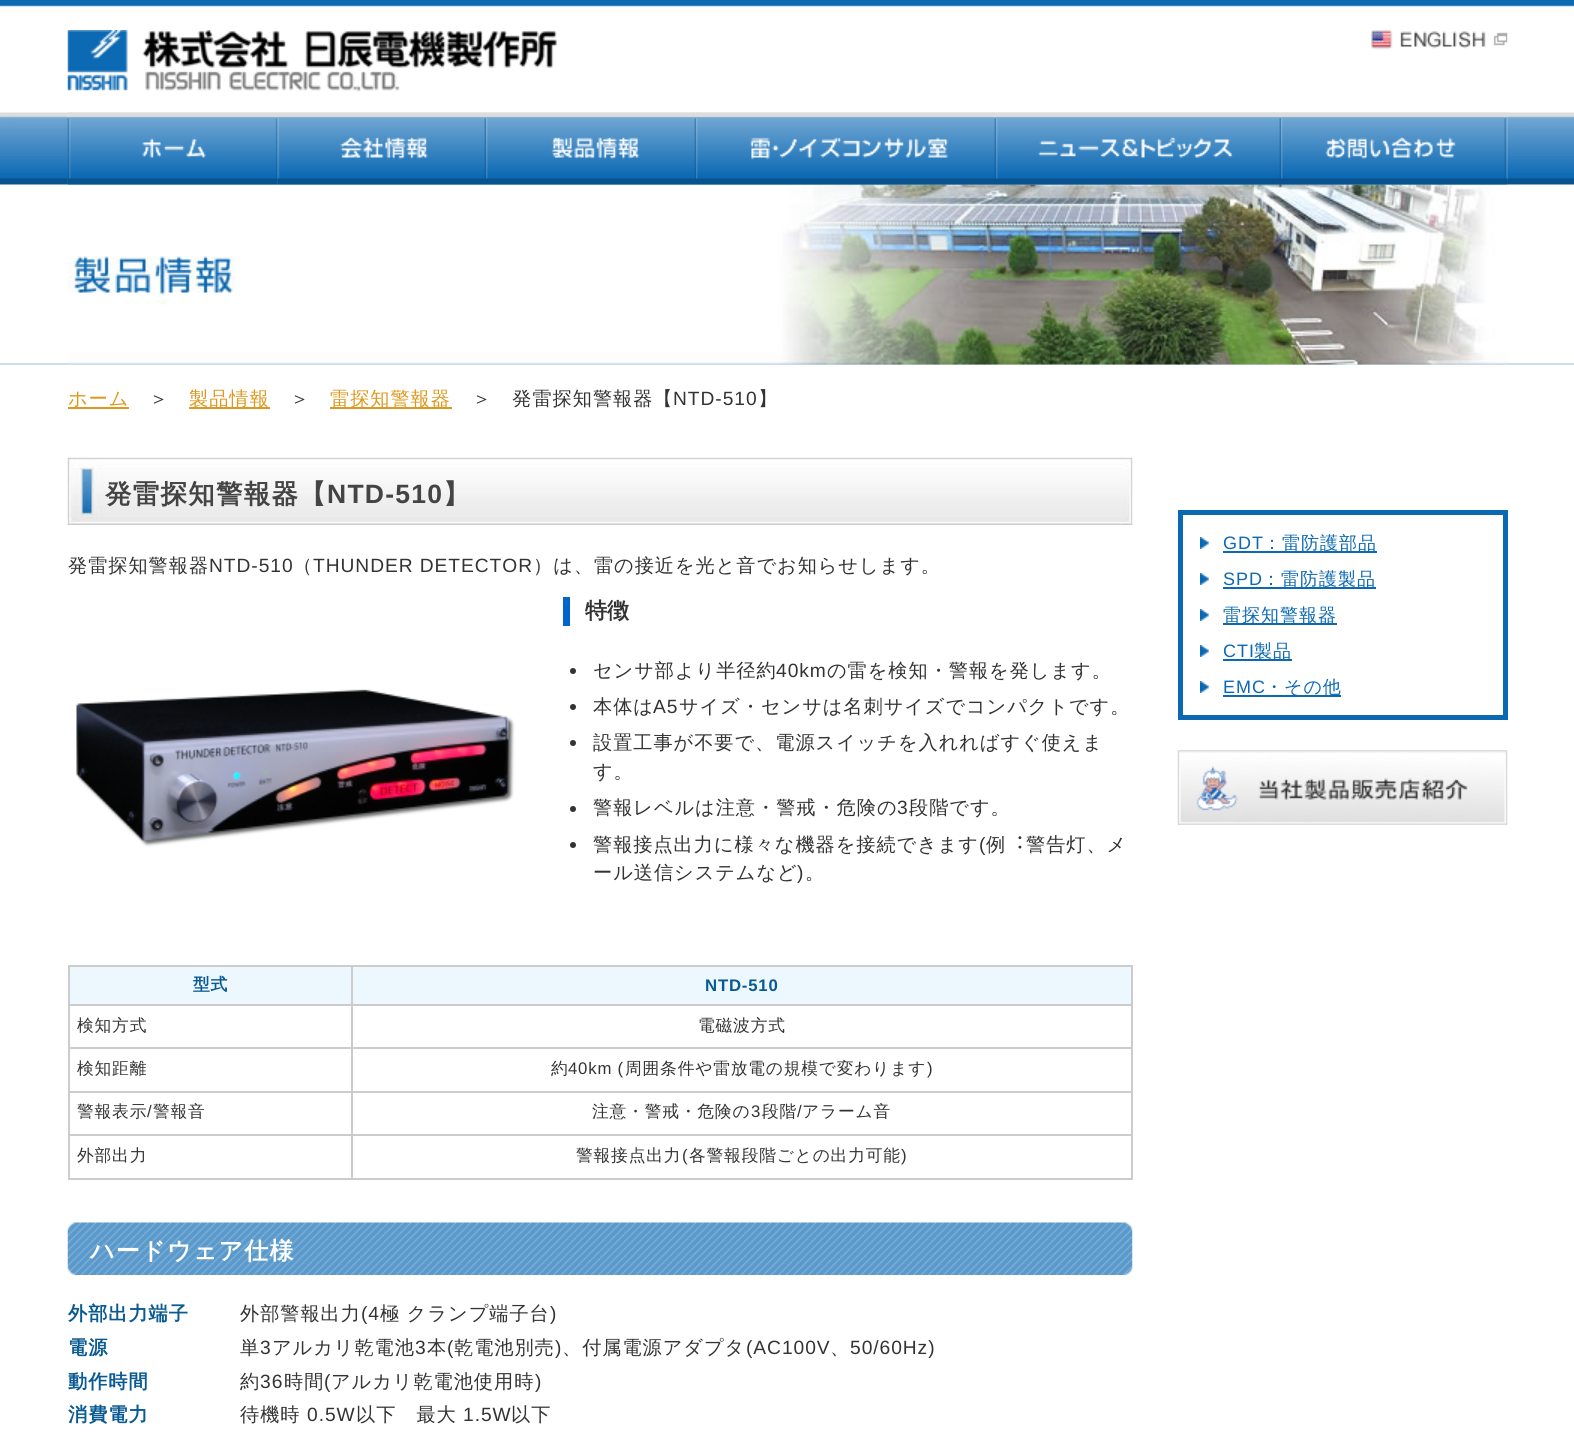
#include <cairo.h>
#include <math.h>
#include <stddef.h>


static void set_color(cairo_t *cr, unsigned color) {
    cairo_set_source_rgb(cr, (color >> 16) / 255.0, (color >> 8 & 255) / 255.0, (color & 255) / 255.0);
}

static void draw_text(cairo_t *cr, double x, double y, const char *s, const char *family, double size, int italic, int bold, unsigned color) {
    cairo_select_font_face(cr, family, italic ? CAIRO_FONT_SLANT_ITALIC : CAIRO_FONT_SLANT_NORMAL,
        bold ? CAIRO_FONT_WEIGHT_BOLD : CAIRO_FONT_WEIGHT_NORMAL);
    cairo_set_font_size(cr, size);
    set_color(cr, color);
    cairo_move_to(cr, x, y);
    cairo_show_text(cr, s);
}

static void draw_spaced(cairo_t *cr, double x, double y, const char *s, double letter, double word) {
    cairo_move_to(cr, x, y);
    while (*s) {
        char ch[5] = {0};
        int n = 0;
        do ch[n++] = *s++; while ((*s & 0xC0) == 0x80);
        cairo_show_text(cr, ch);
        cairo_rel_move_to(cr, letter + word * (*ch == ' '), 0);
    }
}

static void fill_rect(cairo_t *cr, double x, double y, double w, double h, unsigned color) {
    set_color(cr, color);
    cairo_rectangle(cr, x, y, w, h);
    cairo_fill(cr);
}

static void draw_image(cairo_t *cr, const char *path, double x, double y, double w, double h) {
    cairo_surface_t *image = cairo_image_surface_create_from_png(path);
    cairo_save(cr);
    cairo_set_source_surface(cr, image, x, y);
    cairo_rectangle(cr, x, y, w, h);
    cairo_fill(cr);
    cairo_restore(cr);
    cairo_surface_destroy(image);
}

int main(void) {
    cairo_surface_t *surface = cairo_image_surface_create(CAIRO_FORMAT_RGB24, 1574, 1435);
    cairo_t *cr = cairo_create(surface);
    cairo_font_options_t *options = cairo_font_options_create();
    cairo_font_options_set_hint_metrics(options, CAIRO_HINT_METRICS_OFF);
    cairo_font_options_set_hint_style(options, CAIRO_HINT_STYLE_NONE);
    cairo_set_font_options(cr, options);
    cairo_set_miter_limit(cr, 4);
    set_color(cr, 0xFFFFFF);
    cairo_paint(cr);
    draw_image(cr, "assets/img1.png", 0, 0, 1574, 185);
    draw_image(cr, "assets/img2.png", 67, 30, 490, 62);
    draw_image(cr, "assets/img3.png", 1371, 30, 137, 20);
    fill_rect(cr, 0, 363, 1574, 2, 0xCBDFEF);
    draw_image(cr, "assets/img11.png", 67, 184, 1441, 181);
    draw_image(cr, "assets/img4.png", 67, 112, 1441, 73);
    draw_image(cr, "assets/img5.png", 67, 117, 211, 68);
    draw_image(cr, "assets/img6.png", 277, 117, 209, 68);
    draw_image(cr, "assets/img7.png", 486, 117, 210, 68);
    draw_image(cr, "assets/img8.png", 696, 117, 300, 68);
    draw_image(cr, "assets/img9.png", 996, 117, 285, 68);
    draw_image(cr, "assets/img10.png", 1281, 117, 227, 68);
    cairo_select_font_face(cr, "WenQuanYi Zen Hei Medium", CAIRO_FONT_SLANT_NORMAL, CAIRO_FONT_WEIGHT_NORMAL);
    cairo_set_font_size(cr, 19.2);
    set_color(cr, 0xDF981F);
    draw_spaced(cr, 68, 405, "ホーム", 0.95, 0);
    fill_rect(cr, 68, 407, 61, 2, 0xDF981F);
    set_color(cr, 0x333333);
    draw_spaced(cr, 149, 405, "＞", 0.95, 0);
    fill_rect(cr, 189, 407, 81, 2, 0xDF981F);
    draw_spaced(cr, 189, 405, "製品情報", 0.95, 0);
    set_color(cr, 0x333333);
    draw_spaced(cr, 290, 405, "＞", 0.95, 0);
    fill_rect(cr, 330, 407, 122, 2, 0xDF981F);
    draw_spaced(cr, 330, 405, "雷探知警報器", 0.95, 0);
    set_color(cr, 0x333333);
    draw_spaced(cr, 472, 405, "＞　発雷探知警報器【", 0.95, 0);
    cairo_select_font_face(cr, "Liberation Sans", CAIRO_FONT_SLANT_NORMAL, CAIRO_FONT_WEIGHT_NORMAL);
    draw_spaced(cr, 673, 405, "NTD-510", 0.95, 0);
    cairo_select_font_face(cr, "WenQuanYi Zen Hei Medium", CAIRO_FONT_SLANT_NORMAL, CAIRO_FONT_WEIGHT_NORMAL);
    draw_spaced(cr, 758, 405, "】", 0.95, 0);
    draw_image(cr, "assets/img12.png", 67, 457, 1066, 68);
    cairo_select_font_face(cr, "WenQuanYi Zen Hei", CAIRO_FONT_SLANT_NORMAL, CAIRO_FONT_WEIGHT_BOLD);
    cairo_set_font_size(cr, 26.5);
    set_color(cr, 0x444444);
    draw_spaced(cr, 105, 503, "発雷探知警報器【", 1.25, 0);
    cairo_select_font_face(cr, "Liberation Sans", CAIRO_FONT_SLANT_NORMAL, CAIRO_FONT_WEIGHT_BOLD);
    draw_spaced(cr, 327, 503, "NTD-510", 1.25, 0);
    cairo_select_font_face(cr, "WenQuanYi Zen Hei", CAIRO_FONT_SLANT_NORMAL, CAIRO_FONT_WEIGHT_BOLD);
    draw_spaced(cr, 443, 503, "】", 1.25, 0);
    cairo_select_font_face(cr, "WenQuanYi Zen Hei Medium", CAIRO_FONT_SLANT_NORMAL, CAIRO_FONT_WEIGHT_NORMAL);
    cairo_set_font_size(cr, 19.2);
    set_color(cr, 0x333333);
    draw_spaced(cr, 68, 572, "発雷探知警報器", 0.95, 0);
    cairo_select_font_face(cr, "Liberation Sans", CAIRO_FONT_SLANT_NORMAL, CAIRO_FONT_WEIGHT_NORMAL);
    draw_spaced(cr, 209, 572, "NTD-510", 0.95, 0);
    cairo_select_font_face(cr, "WenQuanYi Zen Hei Medium", CAIRO_FONT_SLANT_NORMAL, CAIRO_FONT_WEIGHT_NORMAL);
    draw_spaced(cr, 293, 572, "（", 0.95, 0);
    cairo_select_font_face(cr, "Liberation Sans", CAIRO_FONT_SLANT_NORMAL, CAIRO_FONT_WEIGHT_NORMAL);
    draw_spaced(cr, 313, 572, "THUNDER DETECTOR", 0.95, 0);
    cairo_select_font_face(cr, "WenQuanYi Zen Hei Medium", CAIRO_FONT_SLANT_NORMAL, CAIRO_FONT_WEIGHT_NORMAL);
    draw_spaced(cr, 533, 572, "）は、雷の接近を光と音でお知らせします。", 0.95, 0);
    draw_image(cr, "assets/img13.png", 76, 689, 439, 158);
    fill_rect(cr, 563, 597, 7, 29, 0x0066CC);
    draw_text(cr, 585, 618, "特徴", "WenQuanYi Zen Hei", 22, 0, 1, 0x333333);
    cairo_new_path(cr);
    cairo_arc(cr, 573, 671, 3, 0, 2 * M_PI);
    cairo_fill(cr);
    cairo_select_font_face(cr, "WenQuanYi Zen Hei Medium", CAIRO_FONT_SLANT_NORMAL, CAIRO_FONT_WEIGHT_NORMAL);
    cairo_set_font_size(cr, 19.2);
    draw_spaced(cr, 593, 677, "センサ部より半径約", 0.95, 0);
    cairo_select_font_face(cr, "Liberation Sans", CAIRO_FONT_SLANT_NORMAL, CAIRO_FONT_WEIGHT_NORMAL);
    draw_spaced(cr, 776, 677, "40km", 0.95, 0);
    cairo_select_font_face(cr, "WenQuanYi Zen Hei Medium", CAIRO_FONT_SLANT_NORMAL, CAIRO_FONT_WEIGHT_NORMAL);
    draw_spaced(cr, 827, 677, "の雷を検知・警報を発します。", 0.95, 0);
    cairo_new_path(cr);
    cairo_arc(cr, 573, 707, 3, 0, 2 * M_PI);
    cairo_fill(cr);
    draw_spaced(cr, 593, 713, "本体は", 0.95, 0);
    cairo_select_font_face(cr, "Liberation Sans", CAIRO_FONT_SLANT_NORMAL, CAIRO_FONT_WEIGHT_NORMAL);
    draw_spaced(cr, 653, 713, "A5", 0.95, 0);
    cairo_select_font_face(cr, "WenQuanYi Zen Hei Medium", CAIRO_FONT_SLANT_NORMAL, CAIRO_FONT_WEIGHT_NORMAL);
    draw_spaced(cr, 679, 713, "サイズ・センサは名刺サイズでコンパクトです。", 0.95, 0);
    cairo_new_path(cr);
    cairo_arc(cr, 573, 743, 3, 0, 2 * M_PI);
    cairo_fill(cr);
    draw_spaced(cr, 593, 749, "設置工事が不要で、電源スイッチを入れればすぐ使えま", 0.95, 0);
    draw_spaced(cr, 593, 778, "す。", 0.95, 0);
    cairo_new_path(cr);
    cairo_arc(cr, 573, 809, 3, 0, 2 * M_PI);
    cairo_fill(cr);
    draw_spaced(cr, 593, 814, "警報レベルは注意・警戒・危険の", 0.95, 0);
    cairo_select_font_face(cr, "Liberation Sans", CAIRO_FONT_SLANT_NORMAL, CAIRO_FONT_WEIGHT_NORMAL);
    draw_spaced(cr, 897, 814, "3", 0.95, 0);
    cairo_select_font_face(cr, "WenQuanYi Zen Hei Medium", CAIRO_FONT_SLANT_NORMAL, CAIRO_FONT_WEIGHT_NORMAL);
    draw_spaced(cr, 909, 814, "段階です。", 0.95, 0);
    cairo_new_path(cr);
    cairo_arc(cr, 573, 845, 3, 0, 2 * M_PI);
    cairo_fill(cr);
    draw_spaced(cr, 593, 851, "警報接点出力に様々な機器を接続できます", 0.95, 0);
    cairo_select_font_face(cr, "Liberation Sans", CAIRO_FONT_SLANT_NORMAL, CAIRO_FONT_WEIGHT_NORMAL);
    draw_spaced(cr, 979, 851, "(", 0.95, 0);
    cairo_select_font_face(cr, "WenQuanYi Zen Hei Medium", CAIRO_FONT_SLANT_NORMAL, CAIRO_FONT_WEIGHT_NORMAL);
    draw_spaced(cr, 986, 851, "例", 0.95, 0);
    cairo_select_font_face(cr, "Noto Sans CJK JP", CAIRO_FONT_SLANT_NORMAL, CAIRO_FONT_WEIGHT_NORMAL);
    draw_spaced(cr, 1006, 851, "︓", 0.95, 0);
    cairo_select_font_face(cr, "WenQuanYi Zen Hei Medium", CAIRO_FONT_SLANT_NORMAL, CAIRO_FONT_WEIGHT_NORMAL);
    draw_spaced(cr, 1026, 851, "警告灯、メ", 0.95, 0);
    draw_spaced(cr, 593, 879, "ール送信システムなど", 0.95, 0);
    cairo_select_font_face(cr, "Liberation Sans", CAIRO_FONT_SLANT_NORMAL, CAIRO_FONT_WEIGHT_NORMAL);
    draw_spaced(cr, 797, 879, ")", 0.95, 0);
    cairo_select_font_face(cr, "WenQuanYi Zen Hei Medium", CAIRO_FONT_SLANT_NORMAL, CAIRO_FONT_WEIGHT_NORMAL);
    draw_spaced(cr, 805, 879, "。", 0.95, 0);
    fill_rect(cr, 70, 967, 281, 37, 0xEDF7FE);
    fill_rect(cr, 351, 965, 782, 2, 0xCCCCCC);
    fill_rect(cr, 351, 1004, 782, 2, 0xCCCCCC);
    fill_rect(cr, 351, 1047, 782, 2, 0xCCCCCC);
    fill_rect(cr, 351, 1091, 782, 2, 0xCCCCCC);
    fill_rect(cr, 351, 1134, 782, 2, 0xCCCCCC);
    fill_rect(cr, 1131, 1134, 2, 45, 0xCCCCCC);
    fill_rect(cr, 351, 1178, 782, 2, 0xCCCCCC);
    fill_rect(cr, 351, 1134, 2, 45, 0xCCCCCC);
    fill_rect(cr, 68, 1134, 285, 2, 0xCCCCCC);
    fill_rect(cr, 351, 1091, 2, 45, 0xCCCCCC);
    fill_rect(cr, 68, 1091, 285, 2, 0xCCCCCC);
    fill_rect(cr, 351, 1047, 2, 45, 0xCCCCCC);
    fill_rect(cr, 68, 1047, 285, 2, 0xCCCCCC);
    fill_rect(cr, 351, 1004, 2, 45, 0xCCCCCC);
    fill_rect(cr, 68, 1004, 285, 2, 0xCCCCCC);
    fill_rect(cr, 351, 965, 2, 40, 0xCCCCCC);
    fill_rect(cr, 68, 965, 285, 2, 0xCCCCCC);
    fill_rect(cr, 68, 1178, 285, 2, 0xCCCCCC);
    fill_rect(cr, 68, 1134, 2, 45, 0xCCCCCC);
    fill_rect(cr, 68, 1091, 2, 45, 0xCCCCCC);
    fill_rect(cr, 68, 1047, 2, 45, 0xCCCCCC);
    fill_rect(cr, 68, 1004, 2, 45, 0xCCCCCC);
    fill_rect(cr, 68, 965, 2, 40, 0xCCCCCC);
    cairo_select_font_face(cr, "WenQuanYi Zen Hei", CAIRO_FONT_SLANT_NORMAL, CAIRO_FONT_WEIGHT_BOLD);
    cairo_set_font_size(cr, 16.75);
    set_color(cr, 0x095A91);
    draw_spaced(cr, 193, 990, "型式", 0.8, 0);
    fill_rect(cr, 353, 967, 778, 37, 0xEDF7FE);
    fill_rect(cr, 1131, 1091, 2, 45, 0xCCCCCC);
    fill_rect(cr, 1131, 1047, 2, 45, 0xCCCCCC);
    fill_rect(cr, 1131, 1004, 2, 45, 0xCCCCCC);
    fill_rect(cr, 1131, 965, 2, 40, 0xCCCCCC);
    cairo_select_font_face(cr, "Liberation Sans", CAIRO_FONT_SLANT_NORMAL, CAIRO_FONT_WEIGHT_BOLD);
    set_color(cr, 0x095A91);
    draw_spaced(cr, 705, 991, "NTD-510", 0.8, 0);
    cairo_select_font_face(cr, "WenQuanYi Zen Hei Medium", CAIRO_FONT_SLANT_NORMAL, CAIRO_FONT_WEIGHT_NORMAL);
    set_color(cr, 0x333333);
    draw_spaced(cr, 77, 1031, "検知方式", 0.8, 0);
    draw_spaced(cr, 698, 1031, "電磁波方式", 0.8, 0);
    draw_spaced(cr, 77, 1074, "検知距離", 0.8, 0);
    draw_spaced(cr, 551, 1074, "約", 0.8, 0);
    cairo_select_font_face(cr, "Liberation Sans", CAIRO_FONT_SLANT_NORMAL, CAIRO_FONT_WEIGHT_NORMAL);
    draw_spaced(cr, 568, 1074, "40km (", 0.8, 0);
    cairo_select_font_face(cr, "WenQuanYi Zen Hei Medium", CAIRO_FONT_SLANT_NORMAL, CAIRO_FONT_WEIGHT_NORMAL);
    draw_spaced(cr, 625, 1074, "周囲条件や雷放電の規模で変わります", 0.8, 0);
    cairo_select_font_face(cr, "Liberation Sans", CAIRO_FONT_SLANT_NORMAL, CAIRO_FONT_WEIGHT_NORMAL);
    draw_spaced(cr, 927, 1074, ")", 0.8, 0);
    cairo_select_font_face(cr, "WenQuanYi Zen Hei Medium", CAIRO_FONT_SLANT_NORMAL, CAIRO_FONT_WEIGHT_NORMAL);
    draw_spaced(cr, 77, 1117, "警報表示", 0.8, 0);
    cairo_select_font_face(cr, "Liberation Sans", CAIRO_FONT_SLANT_NORMAL, CAIRO_FONT_WEIGHT_NORMAL);
    draw_spaced(cr, 147, 1117, "/", 0.8, 0);
    cairo_select_font_face(cr, "WenQuanYi Zen Hei Medium", CAIRO_FONT_SLANT_NORMAL, CAIRO_FONT_WEIGHT_NORMAL);
    draw_spaced(cr, 153, 1117, "警報音", 0.8, 0);
    draw_spaced(cr, 592, 1117, "注意・警戒・危険の", 0.8, 0);
    cairo_select_font_face(cr, "Liberation Sans", CAIRO_FONT_SLANT_NORMAL, CAIRO_FONT_WEIGHT_NORMAL);
    draw_spaced(cr, 751, 1117, "3", 0.8, 0);
    cairo_select_font_face(cr, "WenQuanYi Zen Hei Medium", CAIRO_FONT_SLANT_NORMAL, CAIRO_FONT_WEIGHT_NORMAL);
    draw_spaced(cr, 762, 1117, "段階", 0.8, 0);
    cairo_select_font_face(cr, "Liberation Sans", CAIRO_FONT_SLANT_NORMAL, CAIRO_FONT_WEIGHT_NORMAL);
    draw_spaced(cr, 797, 1117, "/", 0.8, 0);
    cairo_select_font_face(cr, "WenQuanYi Zen Hei Medium", CAIRO_FONT_SLANT_NORMAL, CAIRO_FONT_WEIGHT_NORMAL);
    draw_spaced(cr, 802, 1117, "アラーム音", 0.8, 0);
    draw_spaced(cr, 77, 1161, "外部出力", 0.8, 0);
    draw_spaced(cr, 576, 1161, "警報接点出力", 0.8, 0);
    cairo_select_font_face(cr, "Liberation Sans", CAIRO_FONT_SLANT_NORMAL, CAIRO_FONT_WEIGHT_NORMAL);
    draw_spaced(cr, 682, 1161, "(", 0.8, 0);
    cairo_select_font_face(cr, "WenQuanYi Zen Hei Medium", CAIRO_FONT_SLANT_NORMAL, CAIRO_FONT_WEIGHT_NORMAL);
    draw_spaced(cr, 689, 1161, "各警報段階ごとの出力可能", 0.8, 0);
    cairo_select_font_face(cr, "Liberation Sans", CAIRO_FONT_SLANT_NORMAL, CAIRO_FONT_WEIGHT_NORMAL);
    draw_spaced(cr, 901, 1161, ")", 0.8, 0);
    draw_image(cr, "assets/img14.png", 67, 1222, 1066, 53);
    cairo_select_font_face(cr, "WenQuanYi Zen Hei", CAIRO_FONT_SLANT_NORMAL, CAIRO_FONT_WEIGHT_BOLD);
    cairo_set_font_size(cr, 24);
    set_color(cr, 0xFFFFFF);
    draw_spaced(cr, 90, 1259, "ハードウェア仕様", 1.25, 0);
    cairo_set_font_size(cr, 19.2);
    set_color(cr, 0x095A91);
    draw_spaced(cr, 68, 1320, "外部出力端子", 0.95, 0);
    cairo_select_font_face(cr, "WenQuanYi Zen Hei Medium", CAIRO_FONT_SLANT_NORMAL, CAIRO_FONT_WEIGHT_NORMAL);
    set_color(cr, 0x333333);
    draw_spaced(cr, 240, 1320, "外部警報出力", 0.95, 0);
    cairo_select_font_face(cr, "Liberation Sans", CAIRO_FONT_SLANT_NORMAL, CAIRO_FONT_WEIGHT_NORMAL);
    draw_spaced(cr, 361, 1320, "(4", 0.95, 0);
    cairo_select_font_face(cr, "WenQuanYi Zen Hei Medium", CAIRO_FONT_SLANT_NORMAL, CAIRO_FONT_WEIGHT_NORMAL);
    draw_spaced(cr, 380, 1320, "極 クランプ端子台", 0.95, 0);
    cairo_select_font_face(cr, "Liberation Sans", CAIRO_FONT_SLANT_NORMAL, CAIRO_FONT_WEIGHT_NORMAL);
    draw_spaced(cr, 550, 1320, ")", 0.95, 0);
    cairo_select_font_face(cr, "WenQuanYi Zen Hei", CAIRO_FONT_SLANT_NORMAL, CAIRO_FONT_WEIGHT_BOLD);
    set_color(cr, 0x095A91);
    draw_spaced(cr, 68, 1354, "電源", 0.95, 0);
    cairo_select_font_face(cr, "WenQuanYi Zen Hei Medium", CAIRO_FONT_SLANT_NORMAL, CAIRO_FONT_WEIGHT_NORMAL);
    set_color(cr, 0x333333);
    draw_spaced(cr, 240, 1354, "単", 0.95, 0);
    cairo_select_font_face(cr, "Liberation Sans", CAIRO_FONT_SLANT_NORMAL, CAIRO_FONT_WEIGHT_NORMAL);
    draw_spaced(cr, 260, 1354, "3", 0.95, 0);
    cairo_select_font_face(cr, "WenQuanYi Zen Hei Medium", CAIRO_FONT_SLANT_NORMAL, CAIRO_FONT_WEIGHT_NORMAL);
    draw_spaced(cr, 272, 1354, "アルカリ乾電池", 0.95, 0);
    cairo_select_font_face(cr, "Liberation Sans", CAIRO_FONT_SLANT_NORMAL, CAIRO_FONT_WEIGHT_NORMAL);
    draw_spaced(cr, 415, 1354, "3", 0.95, 0);
    cairo_select_font_face(cr, "WenQuanYi Zen Hei Medium", CAIRO_FONT_SLANT_NORMAL, CAIRO_FONT_WEIGHT_NORMAL);
    draw_spaced(cr, 427, 1354, "本", 0.95, 0);
    cairo_select_font_face(cr, "Liberation Sans", CAIRO_FONT_SLANT_NORMAL, CAIRO_FONT_WEIGHT_NORMAL);
    draw_spaced(cr, 447, 1354, "(", 0.95, 0);
    cairo_select_font_face(cr, "WenQuanYi Zen Hei Medium", CAIRO_FONT_SLANT_NORMAL, CAIRO_FONT_WEIGHT_NORMAL);
    draw_spaced(cr, 454, 1354, "乾電池別売", 0.95, 0);
    cairo_select_font_face(cr, "Liberation Sans", CAIRO_FONT_SLANT_NORMAL, CAIRO_FONT_WEIGHT_NORMAL);
    draw_spaced(cr, 555, 1354, ")", 0.95, 0);
    cairo_select_font_face(cr, "WenQuanYi Zen Hei Medium", CAIRO_FONT_SLANT_NORMAL, CAIRO_FONT_WEIGHT_NORMAL);
    draw_spaced(cr, 562, 1354, "、付属電源アダプタ", 0.95, 0);
    cairo_select_font_face(cr, "Liberation Sans", CAIRO_FONT_SLANT_NORMAL, CAIRO_FONT_WEIGHT_NORMAL);
    draw_spaced(cr, 746, 1354, "(AC100V", 0.95, 0);
    cairo_select_font_face(cr, "WenQuanYi Zen Hei Medium", CAIRO_FONT_SLANT_NORMAL, CAIRO_FONT_WEIGHT_NORMAL);
    draw_spaced(cr, 830, 1354, "、", 0.95, 0);
    cairo_select_font_face(cr, "Liberation Sans", CAIRO_FONT_SLANT_NORMAL, CAIRO_FONT_WEIGHT_NORMAL);
    draw_spaced(cr, 850, 1354, "50/60Hz)", 0.95, 0);
    cairo_select_font_face(cr, "WenQuanYi Zen Hei", CAIRO_FONT_SLANT_NORMAL, CAIRO_FONT_WEIGHT_BOLD);
    set_color(cr, 0x095A91);
    draw_spaced(cr, 68, 1388, "動作時間", 0.95, 0);
    cairo_select_font_face(cr, "WenQuanYi Zen Hei Medium", CAIRO_FONT_SLANT_NORMAL, CAIRO_FONT_WEIGHT_NORMAL);
    set_color(cr, 0x333333);
    draw_spaced(cr, 240, 1388, "約", 0.95, 0);
    cairo_select_font_face(cr, "Liberation Sans", CAIRO_FONT_SLANT_NORMAL, CAIRO_FONT_WEIGHT_NORMAL);
    draw_spaced(cr, 260, 1388, "36", 0.95, 0);
    cairo_select_font_face(cr, "WenQuanYi Zen Hei Medium", CAIRO_FONT_SLANT_NORMAL, CAIRO_FONT_WEIGHT_NORMAL);
    draw_spaced(cr, 284, 1388, "時間", 0.95, 0);
    cairo_select_font_face(cr, "Liberation Sans", CAIRO_FONT_SLANT_NORMAL, CAIRO_FONT_WEIGHT_NORMAL);
    draw_spaced(cr, 324, 1388, "(", 0.95, 0);
    cairo_select_font_face(cr, "WenQuanYi Zen Hei Medium", CAIRO_FONT_SLANT_NORMAL, CAIRO_FONT_WEIGHT_NORMAL);
    draw_spaced(cr, 331, 1388, "アルカリ乾電池使用時", 0.95, 0);
    cairo_select_font_face(cr, "Liberation Sans", CAIRO_FONT_SLANT_NORMAL, CAIRO_FONT_WEIGHT_NORMAL);
    draw_spaced(cr, 535, 1388, ")", 0.95, 0);
    cairo_select_font_face(cr, "WenQuanYi Zen Hei", CAIRO_FONT_SLANT_NORMAL, CAIRO_FONT_WEIGHT_BOLD);
    set_color(cr, 0x095A91);
    draw_spaced(cr, 68, 1421, "消費電力", 0.95, 0);
    cairo_select_font_face(cr, "WenQuanYi Zen Hei Medium", CAIRO_FONT_SLANT_NORMAL, CAIRO_FONT_WEIGHT_NORMAL);
    set_color(cr, 0x333333);
    draw_spaced(cr, 240, 1421, "待機時", 0.95, 0);
    cairo_select_font_face(cr, "Liberation Sans", CAIRO_FONT_SLANT_NORMAL, CAIRO_FONT_WEIGHT_NORMAL);
    draw_spaced(cr, 307, 1421, "0.5W", 0.95, 0);
    cairo_select_font_face(cr, "WenQuanYi Zen Hei Medium", CAIRO_FONT_SLANT_NORMAL, CAIRO_FONT_WEIGHT_NORMAL);
    draw_spaced(cr, 356, 1421, "以下　最大", 0.95, 0);
    cairo_select_font_face(cr, "Liberation Sans", CAIRO_FONT_SLANT_NORMAL, CAIRO_FONT_WEIGHT_NORMAL);
    draw_spaced(cr, 463, 1421, "1.5W", 0.95, 0);
    cairo_select_font_face(cr, "WenQuanYi Zen Hei Medium", CAIRO_FONT_SLANT_NORMAL, CAIRO_FONT_WEIGHT_NORMAL);
    draw_spaced(cr, 511, 1421, "以下", 0.95, 0);
    cairo_rectangle(cr, 1180.5, 512.5, 325, 205);
    set_color(cr, 0x0B68B3);
    cairo_set_line_width(cr, 5);
    cairo_stroke(cr);
    draw_image(cr, "assets/img15.png", 1200, 537, 9, 12);
    cairo_select_font_face(cr, "Liberation Sans", CAIRO_FONT_SLANT_NORMAL, CAIRO_FONT_WEIGHT_NORMAL);
    cairo_set_font_size(cr, 18);
    draw_spaced(cr, 1223, 549, "GDT", 1, 0);
    fill_rect(cr, 1223, 551, 154, 2, 0x0B68B3);
    cairo_select_font_face(cr, "WenQuanYi Zen Hei Medium", CAIRO_FONT_SLANT_NORMAL, CAIRO_FONT_WEIGHT_NORMAL);
    draw_spaced(cr, 1263, 549, "：雷防護部品", 1, 0);
    draw_image(cr, "assets/img15.png", 1200, 573, 9, 12);
    cairo_select_font_face(cr, "Liberation Sans", CAIRO_FONT_SLANT_NORMAL, CAIRO_FONT_WEIGHT_NORMAL);
    draw_spaced(cr, 1223, 585, "SPD", 1, 0);
    fill_rect(cr, 1223, 587, 153, 2, 0x0B68B3);
    cairo_select_font_face(cr, "WenQuanYi Zen Hei Medium", CAIRO_FONT_SLANT_NORMAL, CAIRO_FONT_WEIGHT_NORMAL);
    draw_spaced(cr, 1262, 585, "：雷防護製品", 1, 0);
    draw_image(cr, "assets/img15.png", 1200, 609, 9, 12);
    fill_rect(cr, 1223, 623, 114, 2, 0x0B68B3);
    draw_spaced(cr, 1223, 621, "雷探知警報器", 1, 0);
    draw_image(cr, "assets/img15.png", 1200, 645, 9, 12);
    cairo_select_font_face(cr, "Liberation Sans", CAIRO_FONT_SLANT_NORMAL, CAIRO_FONT_WEIGHT_NORMAL);
    draw_spaced(cr, 1223, 657, "CTI", 1, 0);
    fill_rect(cr, 1223, 659, 69, 2, 0x0B68B3);
    cairo_select_font_face(cr, "WenQuanYi Zen Hei Medium", CAIRO_FONT_SLANT_NORMAL, CAIRO_FONT_WEIGHT_NORMAL);
    draw_spaced(cr, 1254, 657, "製品", 1, 0);
    draw_image(cr, "assets/img15.png", 1200, 681, 9, 12);
    cairo_select_font_face(cr, "Liberation Sans", CAIRO_FONT_SLANT_NORMAL, CAIRO_FONT_WEIGHT_NORMAL);
    draw_spaced(cr, 1223, 693, "EMC", 1, 0);
    fill_rect(cr, 1223, 695, 118, 2, 0x0B68B3);
    cairo_select_font_face(cr, "WenQuanYi Zen Hei Medium", CAIRO_FONT_SLANT_NORMAL, CAIRO_FONT_WEIGHT_NORMAL);
    draw_spaced(cr, 1265, 693, "・その他", 1, 0);
    draw_image(cr, "assets/img16.png", 1177, 750, 331, 75);
    cairo_surface_write_to_png(surface, "output.png");
    cairo_font_options_destroy(options);
    cairo_destroy(cr);
    cairo_surface_destroy(surface);
    return 0;
}
